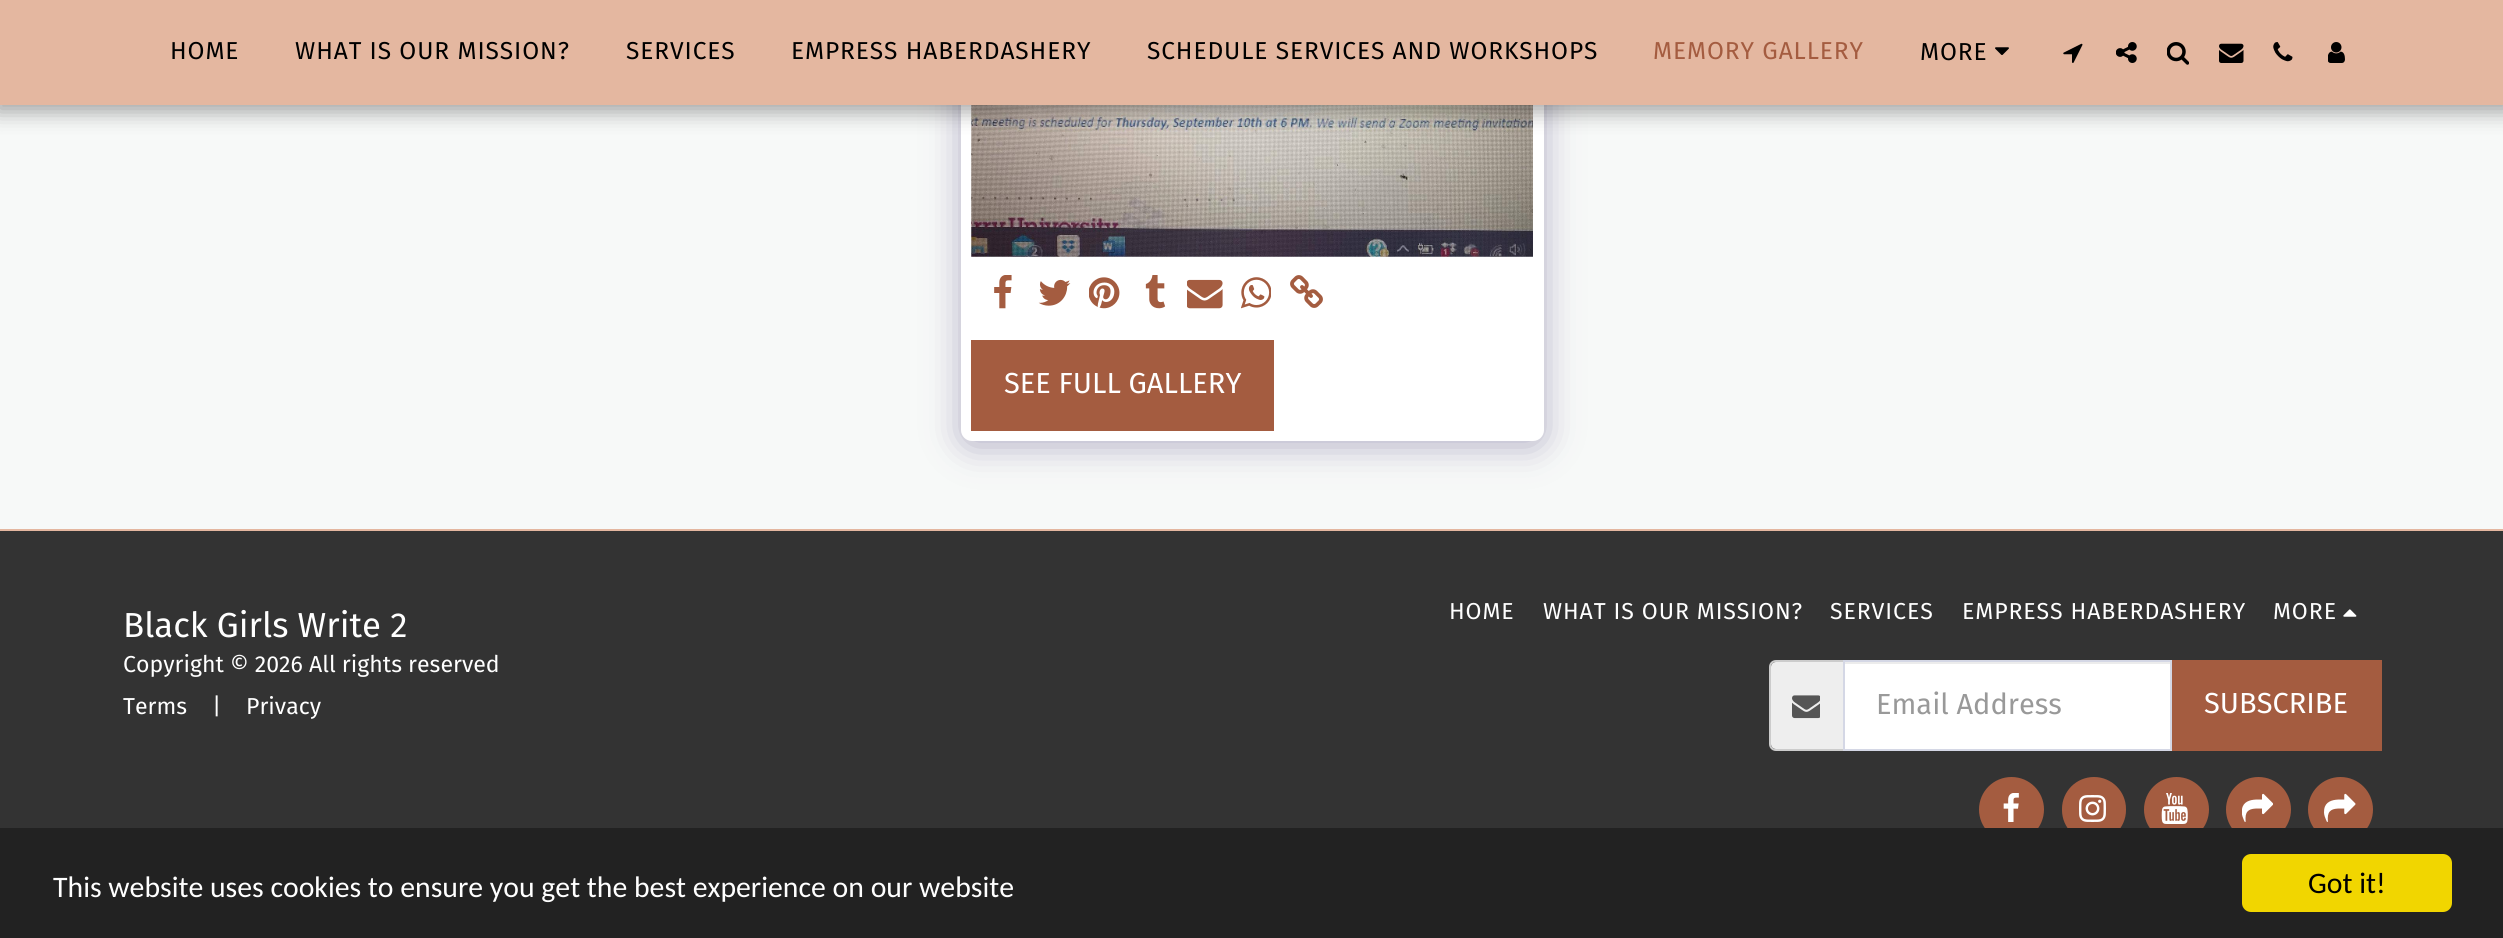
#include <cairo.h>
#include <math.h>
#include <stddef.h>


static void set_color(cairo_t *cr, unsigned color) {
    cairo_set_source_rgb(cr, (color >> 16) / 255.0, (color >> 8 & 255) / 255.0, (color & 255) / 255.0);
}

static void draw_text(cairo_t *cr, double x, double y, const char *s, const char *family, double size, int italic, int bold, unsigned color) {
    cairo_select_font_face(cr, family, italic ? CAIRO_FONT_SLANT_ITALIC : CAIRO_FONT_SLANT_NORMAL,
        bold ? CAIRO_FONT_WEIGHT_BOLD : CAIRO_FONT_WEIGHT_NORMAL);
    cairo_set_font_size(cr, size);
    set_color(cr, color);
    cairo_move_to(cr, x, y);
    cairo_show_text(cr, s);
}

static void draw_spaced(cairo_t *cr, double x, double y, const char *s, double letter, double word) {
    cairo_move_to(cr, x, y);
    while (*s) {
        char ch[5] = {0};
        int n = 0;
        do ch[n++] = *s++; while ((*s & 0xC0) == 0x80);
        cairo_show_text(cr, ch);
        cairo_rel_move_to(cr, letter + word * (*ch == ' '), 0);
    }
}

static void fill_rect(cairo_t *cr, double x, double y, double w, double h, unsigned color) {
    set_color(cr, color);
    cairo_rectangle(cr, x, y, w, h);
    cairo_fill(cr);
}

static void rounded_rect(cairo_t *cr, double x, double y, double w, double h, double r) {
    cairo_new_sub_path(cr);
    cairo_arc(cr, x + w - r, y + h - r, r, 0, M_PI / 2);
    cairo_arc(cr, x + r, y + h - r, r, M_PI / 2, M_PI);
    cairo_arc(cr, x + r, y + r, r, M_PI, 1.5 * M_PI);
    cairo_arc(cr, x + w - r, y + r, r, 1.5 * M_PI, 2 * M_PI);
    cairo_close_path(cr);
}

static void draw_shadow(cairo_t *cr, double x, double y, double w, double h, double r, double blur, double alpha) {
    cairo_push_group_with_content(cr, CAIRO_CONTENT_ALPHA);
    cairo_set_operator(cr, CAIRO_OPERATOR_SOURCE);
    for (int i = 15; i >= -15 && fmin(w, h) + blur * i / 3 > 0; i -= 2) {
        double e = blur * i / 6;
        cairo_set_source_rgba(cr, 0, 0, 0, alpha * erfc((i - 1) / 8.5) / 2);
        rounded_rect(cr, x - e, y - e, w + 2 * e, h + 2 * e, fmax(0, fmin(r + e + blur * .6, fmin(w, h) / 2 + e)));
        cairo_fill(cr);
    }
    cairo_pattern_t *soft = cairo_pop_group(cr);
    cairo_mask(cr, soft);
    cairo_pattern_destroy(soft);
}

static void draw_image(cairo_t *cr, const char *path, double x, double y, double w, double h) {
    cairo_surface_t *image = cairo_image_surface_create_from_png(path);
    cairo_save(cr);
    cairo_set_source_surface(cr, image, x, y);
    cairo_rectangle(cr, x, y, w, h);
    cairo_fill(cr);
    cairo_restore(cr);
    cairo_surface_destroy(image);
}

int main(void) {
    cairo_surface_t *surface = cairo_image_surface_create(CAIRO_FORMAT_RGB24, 2503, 938);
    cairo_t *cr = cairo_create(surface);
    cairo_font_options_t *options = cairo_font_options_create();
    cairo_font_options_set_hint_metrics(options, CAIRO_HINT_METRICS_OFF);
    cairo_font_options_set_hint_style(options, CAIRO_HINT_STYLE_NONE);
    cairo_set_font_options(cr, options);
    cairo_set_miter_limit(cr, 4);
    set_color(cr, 0xF7F9F8);
    cairo_paint(cr);
    set_color(cr, 0x4D3F7A);
    draw_shadow(cr, 961, -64, 583, 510, 11, 17.5, 0.4);
    set_color(cr, 0xFFFFFF);
    rounded_rect(cr, 961, -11, 583, 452, 11);
    cairo_fill(cr);
    draw_image(cr, "assets/img8.png", 971, 105, 562, 152);
    set_color(cr, 0x000000);
    draw_shadow(cr, -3, 0, 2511, 112, 0, 10.5, 0.35);
    fill_rect(cr, 0, 0, 2503, 105, 0xE4B7A0);
    cairo_select_font_face(cr, "Fira Sans", CAIRO_FONT_SLANT_NORMAL, CAIRO_FONT_WEIGHT_NORMAL);
    cairo_set_font_size(cr, 24.5);
    set_color(cr, 0x000000);
    draw_spaced(cr, 170, 59, "HOME", 0.9, 0);
    draw_spaced(cr, 295, 59, "WHAT IS OUR MISSION?", 0.9, 0);
    draw_spaced(cr, 626, 59, "SERVICES", 0.9, 0);
    draw_spaced(cr, 791, 59, "EMPRESS HABERDASHERY", 0.9, 0);
    draw_spaced(cr, 1147, 59, "SCHEDULE SERVICES AND WORKSHOPS", 0.9, 0);
    set_color(cr, 0xA45C40);
    draw_spaced(cr, 1653, 59, "MEMORY GALLERY", 0.9, 0);
    set_color(cr, 0x000000);
    draw_spaced(cr, 1920, 60, "MORE", 0.9, 0);
    draw_image(cr, "assets/img1.png", 1995, 47, 14, 8);
    draw_image(cr, "assets/img2.png", 2063, 43, 20, 20);
    draw_image(cr, "assets/img3.png", 2116, 42, 21, 21);
    draw_image(cr, "assets/img4.png", 2167, 42, 22, 23);
    draw_image(cr, "assets/img5.png", 2219, 43, 25, 20);
    draw_image(cr, "assets/img6.png", 2273, 42, 20, 20);
    draw_image(cr, "assets/img7.png", 2328, 42, 17, 21);
    draw_image(cr, "assets/img9.png", 994, 275, 18, 34);
    draw_image(cr, "assets/img10.png", 1038, 279, 33, 27);
    draw_image(cr, "assets/img11.png", 1089, 277, 31, 32);
    draw_image(cr, "assets/img12.png", 1145, 275, 21, 34);
    draw_image(cr, "assets/img13.png", 1187, 279, 36, 30);
    draw_image(cr, "assets/img14.png", 1241, 277, 30, 32);
    draw_image(cr, "assets/img15.png", 1290, 275, 33, 33);
    fill_rect(cr, 971, 340, 303, 91, 0xA45C40);
    draw_text(cr, 1004, 393, "SEE FULL GALLERY", "Fira Sans", 29, 0, 0, 0xFFFFFF);
    fill_rect(cr, 0, 531, 2503, 297, 0x333333);
    fill_rect(cr, 0, 529, 2503, 2, 0xE4B7A0);
    draw_text(cr, 123, 637, "Black Girls Write 2", "Fira Sans", 34.75, 0, 0, 0xFFFFFF);
    draw_text(cr, 123, 672, "Copyright © 2026 All rights reserved", "Fira Sans", 23.1, 0, 0, 0xFFFFFF);
    draw_text(cr, 123, 714, "Terms", "Fira Sans", 23.1, 0, 0, 0xFFFFFF);
    draw_text(cr, 212, 714, "|", "Fira Sans", 23.1, 0, 0, 0xFFFFFF);
    draw_text(cr, 246, 714, "Privacy", "Fira Sans", 23.1, 0, 0, 0xFFFFFF);
    draw_spaced(cr, 1449, 619, "HOME", 0.9, 0);
    draw_spaced(cr, 1543, 619, "WHAT IS OUR MISSION?", 0.9, 0);
    draw_spaced(cr, 1830, 619, "SERVICES", 0.9, 0);
    draw_spaced(cr, 1962, 619, "EMPRESS HABERDASHERY", 0.9, 0);
    draw_spaced(cr, 2273, 619, "MORE", 0.9, 0);
    draw_image(cr, "assets/img16.png", 2343, 609, 14, 8);
    set_color(cr, 0xEEEEEE);
    cairo_new_path(cr);
    cairo_move_to(cr, 1776, 662);
    cairo_line_to(cr, 1843, 662);
    cairo_line_to(cr, 1843, 749);
    cairo_line_to(cr, 1776, 749);
    cairo_curve_to(cr, 1773, 749, 1771, 747, 1771, 744);
    cairo_line_to(cr, 1771, 667);
    cairo_curve_to(cr, 1771, 664, 1773, 662, 1776, 662);
    cairo_close_path(cr);
    cairo_fill(cr);
    set_color(cr, 0xCCCCCC);
    cairo_set_fill_rule(cr, CAIRO_FILL_RULE_EVEN_ODD);
    cairo_new_path(cr);
    cairo_move_to(cr, 1776, 660);
    cairo_line_to(cr, 1843, 660);
    cairo_line_to(cr, 1843, 751);
    cairo_line_to(cr, 1776, 751);
    cairo_curve_to(cr, 1772, 751, 1769, 748, 1769, 744);
    cairo_line_to(cr, 1769, 667);
    cairo_curve_to(cr, 1769, 663, 1772, 660, 1776, 660);
    cairo_close_path(cr);
    cairo_move_to(cr, 1776, 662);
    cairo_line_to(cr, 1843, 662);
    cairo_line_to(cr, 1843, 749);
    cairo_line_to(cr, 1776, 749);
    cairo_curve_to(cr, 1773, 749, 1771, 747, 1771, 744);
    cairo_line_to(cr, 1771, 667);
    cairo_curve_to(cr, 1771, 664, 1773, 662, 1776, 662);
    cairo_close_path(cr);
    cairo_fill(cr);
    draw_image(cr, "assets/img17.png", 1792, 695, 28, 24);
    fill_rect(cr, 1845, 664, 325, 85, 0xFFFFFF);
    fill_rect(cr, 1845, 662, 325, 2, 0xECECEC);
    cairo_rectangle(cr, 1844, 661, 327, 89);
    set_color(cr, 0xD4D7E5);
    cairo_stroke(cr);
    draw_text(cr, 1876, 714, "Email Address", "Fira Sans", 29, 0, 0, 0x999999);
    fill_rect(cr, 2172, 660, 210, 91, 0xA45C40);
    draw_text(cr, 2204, 713, "SUBSCRIBE", "Fira Sans", 29, 0, 0, 0xFFFFFF);
    set_color(cr, 0xA45C40);
    cairo_new_path(cr);
    cairo_arc(cr, 2011.5, 809.5, 31.5, 0, 2 * M_PI);
    cairo_fill_preserve(cr);
    cairo_stroke(cr);
    draw_image(cr, "assets/img18.png", 2003, 793, 16, 29);
    rounded_rect(cr, 2063, 778, 62, 63, 31);
    cairo_fill_preserve(cr);
    cairo_stroke(cr);
    draw_image(cr, "assets/img19.png", 2079, 795, 27, 27);
    cairo_arc(cr, 2176.5, 809.5, 31.5, 0, 2 * M_PI);
    cairo_fill_preserve(cr);
    cairo_stroke(cr);
    draw_image(cr, "assets/img20.png", 2161, 793, 27, 31);
    cairo_arc(cr, 2258.5, 809.5, 31.5, 0, 2 * M_PI);
    cairo_fill_preserve(cr);
    cairo_stroke(cr);
    draw_image(cr, "assets/img21.png", 2242, 793, 31, 29);
    cairo_arc(cr, 2340.5, 809.5, 31.5, 0, 2 * M_PI);
    cairo_fill_preserve(cr);
    cairo_stroke(cr);
    draw_image(cr, "assets/img22.png", 2324, 793, 32, 29);
    fill_rect(cr, 0, 828, 2503, 110, 0x222222);
    draw_text(cr, 53, 897, "This website uses cookies to ensure you get the best experience on our website", "Carlito", 29.75, 0, 0, 0xFFFFFF);
    set_color(cr, 0xF1D600);
    rounded_rect(cr, 2242, 854, 210, 58, 9);
    cairo_fill(cr);
    draw_text(cr, 2308, 893, "Got it!", "Carlito", 29.75, 0, 0, 0x000000);
    cairo_surface_write_to_png(surface, "output.png");
    cairo_font_options_destroy(options);
    cairo_destroy(cr);
    cairo_surface_destroy(surface);
    return 0;
}
